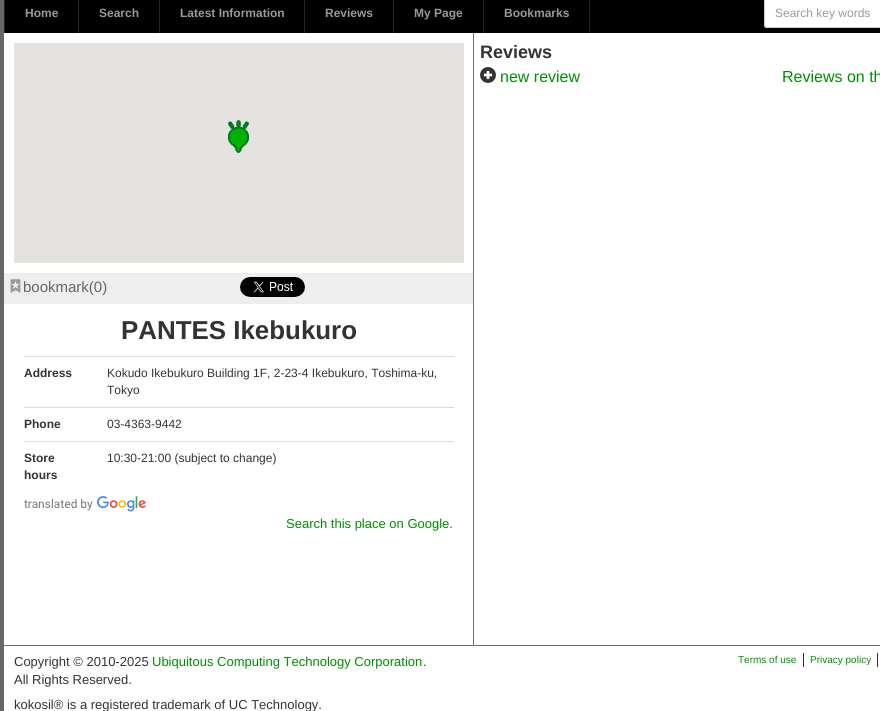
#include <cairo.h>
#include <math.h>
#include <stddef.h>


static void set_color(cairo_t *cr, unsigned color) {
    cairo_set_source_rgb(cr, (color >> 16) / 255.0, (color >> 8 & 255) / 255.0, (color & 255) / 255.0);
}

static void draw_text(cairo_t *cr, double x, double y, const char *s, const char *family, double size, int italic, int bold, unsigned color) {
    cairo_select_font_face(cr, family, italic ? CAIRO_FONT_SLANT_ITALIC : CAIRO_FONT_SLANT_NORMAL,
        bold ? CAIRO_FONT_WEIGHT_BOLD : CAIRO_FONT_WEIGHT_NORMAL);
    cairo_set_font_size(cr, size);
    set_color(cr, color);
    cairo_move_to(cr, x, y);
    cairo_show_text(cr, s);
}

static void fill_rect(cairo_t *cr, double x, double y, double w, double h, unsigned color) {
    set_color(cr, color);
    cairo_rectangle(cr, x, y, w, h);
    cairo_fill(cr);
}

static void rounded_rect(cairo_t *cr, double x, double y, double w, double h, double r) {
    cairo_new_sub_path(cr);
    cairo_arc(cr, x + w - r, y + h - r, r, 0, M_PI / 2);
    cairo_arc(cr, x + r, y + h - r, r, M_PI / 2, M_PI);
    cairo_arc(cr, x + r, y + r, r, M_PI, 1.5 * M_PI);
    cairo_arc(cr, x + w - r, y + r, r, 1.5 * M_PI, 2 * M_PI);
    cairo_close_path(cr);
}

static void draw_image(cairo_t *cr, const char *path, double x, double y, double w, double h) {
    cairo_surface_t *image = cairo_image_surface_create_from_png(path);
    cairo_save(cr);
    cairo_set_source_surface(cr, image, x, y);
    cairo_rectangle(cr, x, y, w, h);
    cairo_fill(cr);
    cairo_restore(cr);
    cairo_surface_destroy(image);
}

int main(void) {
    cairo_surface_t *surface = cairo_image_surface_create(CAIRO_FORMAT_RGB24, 880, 711);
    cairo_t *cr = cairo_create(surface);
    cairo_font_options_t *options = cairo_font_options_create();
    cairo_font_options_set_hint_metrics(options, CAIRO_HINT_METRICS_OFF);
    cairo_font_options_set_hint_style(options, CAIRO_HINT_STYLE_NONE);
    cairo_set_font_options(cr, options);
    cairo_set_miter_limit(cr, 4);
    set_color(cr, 0xFFFFFF);
    cairo_paint(cr);
    fill_rect(cr, 0, 0, 4, 711, 0x666666);
    fill_rect(cr, 5, 0, 875, 33, 0x000000);
    fill_rect(cr, 78, 0, 1, 33, 0x252525);
    fill_rect(cr, 4, 0, 1, 33, 0x252525);
    draw_text(cr, 25, 17, "Home", "Liberation Sans", 12, 0, 1, 0x999999);
    fill_rect(cr, 159, 0, 1, 33, 0x252525);
    draw_text(cr, 99, 17, "Search", "Liberation Sans", 12, 0, 1, 0x999999);
    fill_rect(cr, 304, 0, 1, 33, 0x252525);
    draw_text(cr, 180, 17, "Latest Information", "Liberation Sans", 12, 0, 1, 0x999999);
    fill_rect(cr, 393, 0, 1, 33, 0x252525);
    draw_text(cr, 325, 17, "Reviews", "Liberation Sans", 12, 0, 1, 0x999999);
    fill_rect(cr, 483, 0, 1, 33, 0x252525);
    draw_text(cr, 414, 17, "My Page", "Liberation Sans", 12, 0, 1, 0x999999);
    fill_rect(cr, 589, 0, 1, 33, 0x252525);
    draw_text(cr, 504, 17, "Bookmarks", "Liberation Sans", 12, 0, 1, 0x999999);
    set_color(cr, 0xFFFFFF);
    rounded_rect(cr, 764, -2, 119, 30, 3);
    cairo_fill(cr);
    set_color(cr, 0xECECEC);
    cairo_new_path(cr);
    cairo_move_to(cr, 767, 0);
    cairo_line_to(cr, 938, 0);
    cairo_curve_to(cr, 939, 0, 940, 1, 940, 2);
    cairo_curve_to(cr, 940, 1, 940, -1, 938, -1);
    cairo_line_to(cr, 767, -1);
    cairo_curve_to(cr, 765, -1, 765, 1, 765, 2);
    cairo_curve_to(cr, 765, 1, 766, 0, 767, 0);
    cairo_close_path(cr);
    cairo_fill(cr);
    rounded_rect(cr, 764.5, -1.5, 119, 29, 2.5);
    set_color(cr, 0xCCCCCC);
    cairo_set_line_width(cr, 1);
    cairo_stroke(cr);
    draw_text(cr, 775, 17, "Search key words", "Liberation Sans", 12, 0, 0, 0x999999);
    fill_rect(cr, 473, 33, 1, 612, 0x717071);
    draw_text(cr, 480, 58, "Reviews", "Liberation Sans", 18, 0, 1, 0x333333);
    draw_image(cr, "assets/img1.png", 480, 67, 16, 16);
    draw_text(cr, 500, 82, "new review", "Liberation Sans", 16, 0, 0, 0x008D00);
    draw_text(cr, 782, 82, "Reviews on th", "Liberation Sans", 16, 0, 0, 0x008D00);
    fill_rect(cr, 14, 43, 450, 220, 0xE5E3DF);
    draw_image(cr, "assets/img2.png", 228, 120, 21, 33);
    fill_rect(cr, 4, 273, 469, 31, 0xEEEEEE);
    draw_image(cr, "assets/img3.png", 10, 279, 11, 14);
    draw_text(cr, 23, 292, "bookmark(0)", "Liberation Sans", 15, 0, 0, 0x666666);
    draw_image(cr, "assets/img4.png", 240, 277, 65, 20);
    draw_text(cr, 121, 339, "PANTES Ikebukuro", "Liberation Sans", 25.9, 0, 1, 0x333333);
    draw_text(cr, 24, 377, "Address", "Liberation Sans", 12, 0, 1, 0x333333);
    fill_rect(cr, 24, 356, 430, 1, 0xDDDDDD);
    draw_text(cr, 107, 377, "Kokudo Ikebukuro Building 1F, 2-23-4 Ikebukuro, Toshima-ku,", "Liberation Sans", 12, 0, 0, 0x333333);
    draw_text(cr, 107, 394, "Tokyo", "Liberation Sans", 12, 0, 0, 0x333333);
    draw_text(cr, 24, 428, "Phone", "Liberation Sans", 12, 0, 1, 0x333333);
    fill_rect(cr, 24, 407, 430, 1, 0xDDDDDD);
    draw_text(cr, 107, 428, "03-4363-9442", "Liberation Sans", 12, 0, 0, 0x333333);
    draw_text(cr, 24, 462, "Store", "Liberation Sans", 12, 0, 1, 0x333333);
    draw_text(cr, 24, 479, "hours", "Liberation Sans", 12, 0, 1, 0x333333);
    fill_rect(cr, 24, 441, 430, 1, 0xDDDDDD);
    draw_text(cr, 107, 462, "10:30-21:00 (subject to change)", "Liberation Sans", 12, 0, 0, 0x333333);
    draw_image(cr, "assets/img5.png", 24, 496, 122, 16);
    draw_text(cr, 286, 528, "Search this place on Google.", "Liberation Sans", 13, 0, 0, 0x008D00);
    fill_rect(cr, 4, 645, 876, 1, 0x717071);
    draw_text(cr, 14, 666, "Copyright © 2010-2025", "Liberation Sans", 13, 0, 0, 0x333333);
    draw_text(cr, 152, 666, "Ubiquitous Computing Technology Corporation", "Liberation Sans", 13, 0, 0, 0x008D00);
    draw_text(cr, 423, 666, ".", "Liberation Sans", 13, 0, 0, 0x333333);
    draw_text(cr, 14, 684, "All Rights Reserved.", "Liberation Sans", 13, 0, 0, 0x333333);
    draw_text(cr, 14, 709, "kokosil® is a registered trademark of UC Technology.", "Liberation Sans", 13, 0, 0, 0x333333);
    fill_rect(cr, 803, 653, 1, 14, 0x333333);
    draw_text(cr, 738, 663, "Terms of use", "Liberation Sans", 10, 0, 0, 0x008D00);
    fill_rect(cr, 877, 653, 1, 14, 0x333333);
    draw_text(cr, 810, 663, "Privacy policy", "Liberation Sans", 10, 0, 0, 0x008D00);
    cairo_surface_write_to_png(surface, "output.png");
    cairo_font_options_destroy(options);
    cairo_destroy(cr);
    cairo_surface_destroy(surface);
    return 0;
}
